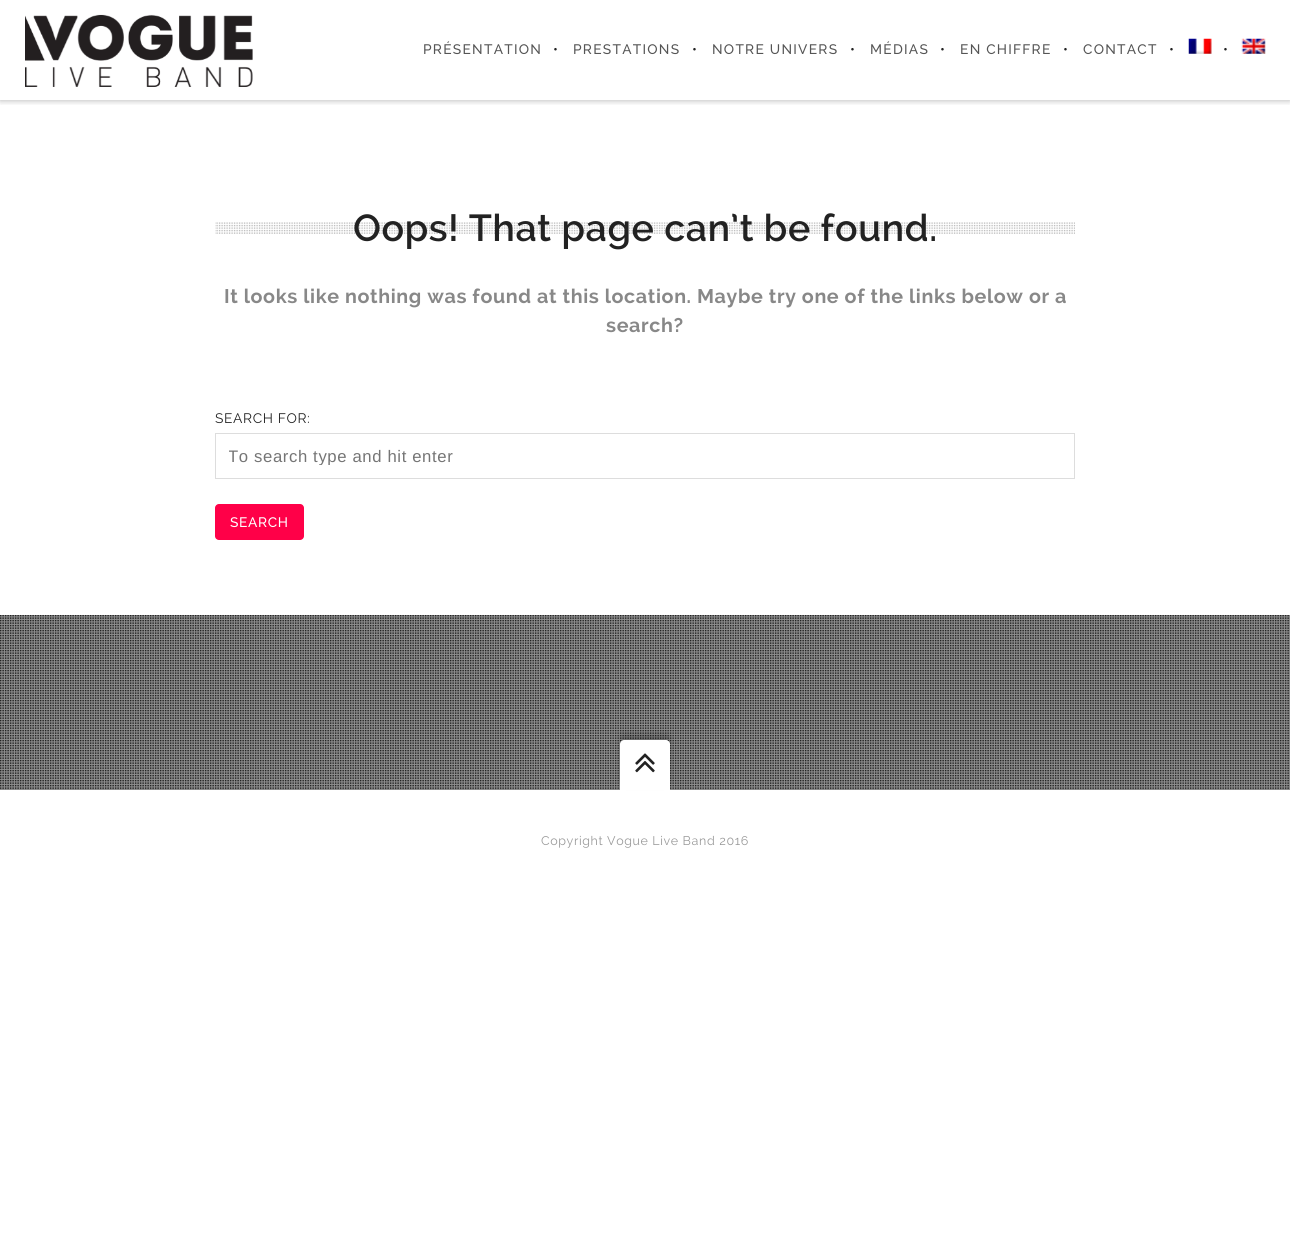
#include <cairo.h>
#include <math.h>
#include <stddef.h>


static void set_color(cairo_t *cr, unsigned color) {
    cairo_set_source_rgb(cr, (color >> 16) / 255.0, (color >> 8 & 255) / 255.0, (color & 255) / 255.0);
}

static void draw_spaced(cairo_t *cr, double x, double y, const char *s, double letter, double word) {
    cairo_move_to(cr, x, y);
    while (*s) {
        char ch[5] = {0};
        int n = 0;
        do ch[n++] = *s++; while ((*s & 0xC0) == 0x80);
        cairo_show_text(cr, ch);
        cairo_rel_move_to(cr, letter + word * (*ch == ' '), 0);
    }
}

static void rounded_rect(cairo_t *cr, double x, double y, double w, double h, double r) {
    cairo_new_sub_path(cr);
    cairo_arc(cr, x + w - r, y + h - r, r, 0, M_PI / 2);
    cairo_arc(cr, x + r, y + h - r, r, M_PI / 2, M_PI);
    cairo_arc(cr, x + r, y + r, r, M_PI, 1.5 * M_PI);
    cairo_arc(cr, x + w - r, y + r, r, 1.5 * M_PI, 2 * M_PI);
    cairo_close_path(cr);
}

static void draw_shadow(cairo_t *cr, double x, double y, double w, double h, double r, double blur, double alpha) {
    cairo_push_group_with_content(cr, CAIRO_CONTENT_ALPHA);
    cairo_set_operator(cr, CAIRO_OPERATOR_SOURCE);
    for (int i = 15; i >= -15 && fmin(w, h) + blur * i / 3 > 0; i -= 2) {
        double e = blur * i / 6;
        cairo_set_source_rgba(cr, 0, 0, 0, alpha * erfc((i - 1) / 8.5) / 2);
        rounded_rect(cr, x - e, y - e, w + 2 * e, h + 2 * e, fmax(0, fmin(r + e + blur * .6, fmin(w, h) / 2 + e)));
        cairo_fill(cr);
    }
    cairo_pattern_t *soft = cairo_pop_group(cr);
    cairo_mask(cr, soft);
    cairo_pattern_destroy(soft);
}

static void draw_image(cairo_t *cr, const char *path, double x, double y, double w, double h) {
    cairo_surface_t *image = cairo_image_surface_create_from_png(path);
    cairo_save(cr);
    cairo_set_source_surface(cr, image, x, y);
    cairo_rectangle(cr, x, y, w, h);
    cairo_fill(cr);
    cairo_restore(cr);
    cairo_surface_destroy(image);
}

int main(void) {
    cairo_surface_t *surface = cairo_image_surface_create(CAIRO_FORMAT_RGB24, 1290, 1257);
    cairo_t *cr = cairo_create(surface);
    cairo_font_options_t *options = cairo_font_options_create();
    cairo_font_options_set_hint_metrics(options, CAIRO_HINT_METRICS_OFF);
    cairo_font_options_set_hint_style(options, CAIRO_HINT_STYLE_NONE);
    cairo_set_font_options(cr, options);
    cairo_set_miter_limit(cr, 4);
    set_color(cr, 0xFFFFFF);
    cairo_paint(cr);
    cairo_save(cr);
    cairo_rectangle(cr, 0, 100, 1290, 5);
    cairo_clip(cr);
    set_color(cr, 0x000000);
    draw_shadow(cr, 0, 1, 1290, 100, 0, 3, 0.25);
    cairo_restore(cr);
    draw_image(cr, "assets/img1.png", 25, 14, 228, 73);
    cairo_select_font_face(cr, "Raleway Medium", CAIRO_FONT_SLANT_NORMAL, CAIRO_FONT_WEIGHT_NORMAL);
    cairo_set_font_size(cr, 13.75);
    set_color(cr, 0x555555);
    draw_spaced(cr, 423, 54, "PRÉSENTATION", 1.25, 0);
    set_color(cr, 0x222222);
    draw_spaced(cr, 553, 54, "•", 1.25, 0);
    set_color(cr, 0x555555);
    draw_spaced(cr, 573, 54, "PRESTATIONS", 1.25, 0);
    set_color(cr, 0x222222);
    draw_spaced(cr, 692, 54, "•", 1.25, 0);
    set_color(cr, 0x555555);
    draw_spaced(cr, 712, 54, "NOTRE UNIVERS", 1.25, 0);
    set_color(cr, 0x222222);
    draw_spaced(cr, 850, 54, "•", 1.25, 0);
    set_color(cr, 0x555555);
    draw_spaced(cr, 870, 54, "MÉDIAS", 1.25, 0);
    set_color(cr, 0x222222);
    draw_spaced(cr, 940, 54, "•", 1.25, 0);
    set_color(cr, 0x555555);
    draw_spaced(cr, 960, 54, "EN CHIFFRE", 1.25, 0);
    set_color(cr, 0x222222);
    draw_spaced(cr, 1063, 54, "•", 1.25, 0);
    set_color(cr, 0x555555);
    draw_spaced(cr, 1083, 54, "CONTACT", 1.25, 0);
    set_color(cr, 0x222222);
    draw_spaced(cr, 1169, 54, "•", 1.25, 0);
    draw_image(cr, "assets/img2.png", 1188, 38, 24, 16);
    draw_spaced(cr, 1223, 54, "•", 1.25, 0);
    draw_image(cr, "assets/img3.png", 1241, 38, 25, 16);
    draw_image(cr, "assets/img4.png", 215, 222, 860, 12);
    cairo_select_font_face(cr, "Raleway SemiBold", CAIRO_FONT_SLANT_NORMAL, CAIRO_FONT_WEIGHT_NORMAL);
    cairo_set_font_size(cr, 37.5);
    draw_spaced(cr, 353, 241, "Oops! That page can’t be found.", 0.62, 0);
    cairo_select_font_face(cr, "Raleway", CAIRO_FONT_SLANT_NORMAL, CAIRO_FONT_WEIGHT_BOLD);
    cairo_set_font_size(cr, 19.7);
    set_color(cr, 0x888888);
    draw_spaced(cr, 224, 303, "It looks like nothing was found at this location. Maybe try one of the links below or a", 0.62, 0);
    draw_spaced(cr, 606, 332, "search?", 0.62, 0);
    cairo_select_font_face(cr, "Raleway", CAIRO_FONT_SLANT_NORMAL, CAIRO_FONT_WEIGHT_NORMAL);
    cairo_set_font_size(cr, 13.75);
    set_color(cr, 0x222222);
    draw_spaced(cr, 215, 423, "SEARCH FOR:", 0.62, 0);
    cairo_rectangle(cr, 215.5, 433.5, 859, 45);
    set_color(cr, 0xDDDDDD);
    cairo_set_line_width(cr, 1);
    cairo_stroke(cr);
    cairo_save(cr);
    cairo_rectangle(cr, 229, 446, 816, 19);
    cairo_clip(cr);
    cairo_select_font_face(cr, "Liberation Sans", CAIRO_FONT_SLANT_NORMAL, CAIRO_FONT_WEIGHT_NORMAL);
    cairo_set_font_size(cr, 16.7);
    set_color(cr, 0x757575);
    draw_spaced(cr, 228, 462, "To search type and hit enter", 0.62, 0);
    cairo_restore(cr);
    set_color(cr, 0xFF0048);
    rounded_rect(cr, 215, 504, 89, 36, 4);
    cairo_fill(cr);
    cairo_select_font_face(cr, "Raleway Medium", CAIRO_FONT_SLANT_NORMAL, CAIRO_FONT_WEIGHT_NORMAL);
    set_color(cr, 0xFFFFFF);
    draw_spaced(cr, 230, 527, "SEARCH", 0.62, 0);
    draw_image(cr, "assets/img5.png", 0, 615, 1290, 175);
    set_color(cr, 0x000000);
    draw_shadow(cr, 620, 734, 50, 50, 4, 3, 0.2);
    set_color(cr, 0xFFFFFF);
    cairo_new_path(cr);
    cairo_move_to(cr, 624, 740);
    cairo_line_to(cr, 666, 740);
    cairo_curve_to(cr, 668, 740, 670, 742, 670, 744);
    cairo_line_to(cr, 670, 790);
    cairo_line_to(cr, 620, 790);
    cairo_line_to(cr, 620, 744);
    cairo_curve_to(cr, 620, 742, 622, 740, 624, 740);
    cairo_close_path(cr);
    cairo_fill(cr);
    draw_image(cr, "assets/img6.png", 635, 753, 20, 20);
    cairo_select_font_face(cr, "Raleway", CAIRO_FONT_SLANT_NORMAL, CAIRO_FONT_WEIGHT_NORMAL);
    cairo_set_font_size(cr, 12.5);
    set_color(cr, 0x999999);
    draw_spaced(cr, 541, 845, "Copyright Vogue Live Band 2016", 0.62, 0);
    cairo_surface_write_to_png(surface, "output.png");
    cairo_font_options_destroy(options);
    cairo_destroy(cr);
    cairo_surface_destroy(surface);
    return 0;
}
